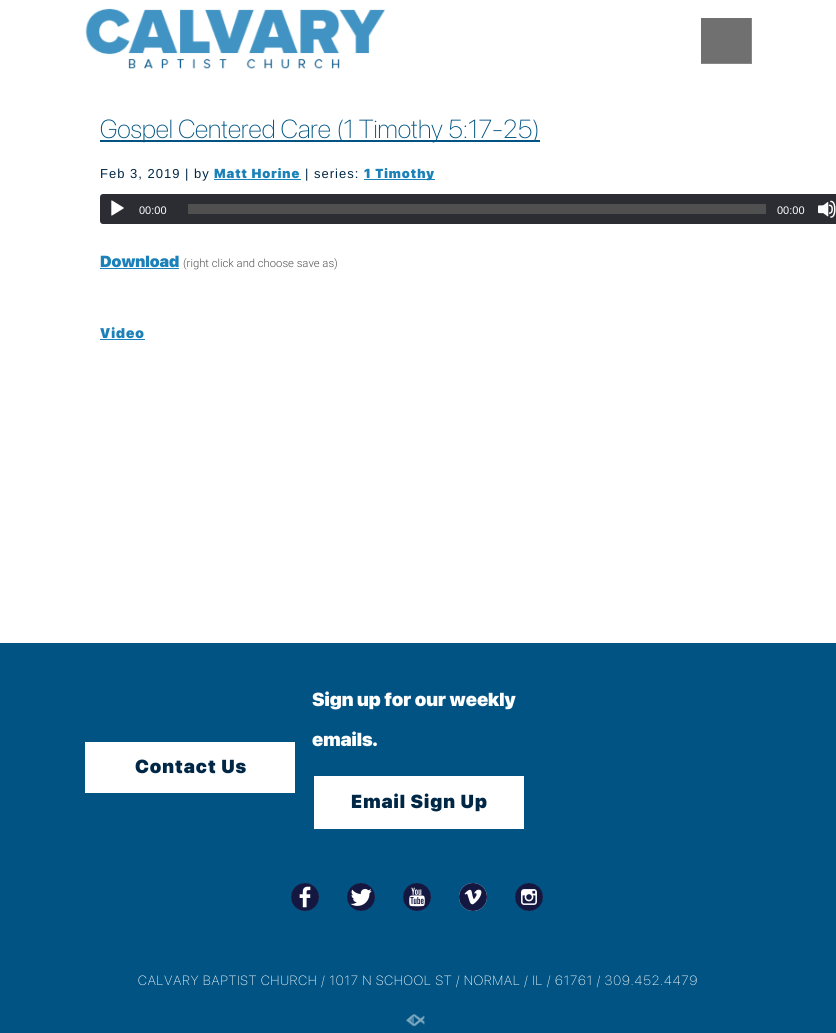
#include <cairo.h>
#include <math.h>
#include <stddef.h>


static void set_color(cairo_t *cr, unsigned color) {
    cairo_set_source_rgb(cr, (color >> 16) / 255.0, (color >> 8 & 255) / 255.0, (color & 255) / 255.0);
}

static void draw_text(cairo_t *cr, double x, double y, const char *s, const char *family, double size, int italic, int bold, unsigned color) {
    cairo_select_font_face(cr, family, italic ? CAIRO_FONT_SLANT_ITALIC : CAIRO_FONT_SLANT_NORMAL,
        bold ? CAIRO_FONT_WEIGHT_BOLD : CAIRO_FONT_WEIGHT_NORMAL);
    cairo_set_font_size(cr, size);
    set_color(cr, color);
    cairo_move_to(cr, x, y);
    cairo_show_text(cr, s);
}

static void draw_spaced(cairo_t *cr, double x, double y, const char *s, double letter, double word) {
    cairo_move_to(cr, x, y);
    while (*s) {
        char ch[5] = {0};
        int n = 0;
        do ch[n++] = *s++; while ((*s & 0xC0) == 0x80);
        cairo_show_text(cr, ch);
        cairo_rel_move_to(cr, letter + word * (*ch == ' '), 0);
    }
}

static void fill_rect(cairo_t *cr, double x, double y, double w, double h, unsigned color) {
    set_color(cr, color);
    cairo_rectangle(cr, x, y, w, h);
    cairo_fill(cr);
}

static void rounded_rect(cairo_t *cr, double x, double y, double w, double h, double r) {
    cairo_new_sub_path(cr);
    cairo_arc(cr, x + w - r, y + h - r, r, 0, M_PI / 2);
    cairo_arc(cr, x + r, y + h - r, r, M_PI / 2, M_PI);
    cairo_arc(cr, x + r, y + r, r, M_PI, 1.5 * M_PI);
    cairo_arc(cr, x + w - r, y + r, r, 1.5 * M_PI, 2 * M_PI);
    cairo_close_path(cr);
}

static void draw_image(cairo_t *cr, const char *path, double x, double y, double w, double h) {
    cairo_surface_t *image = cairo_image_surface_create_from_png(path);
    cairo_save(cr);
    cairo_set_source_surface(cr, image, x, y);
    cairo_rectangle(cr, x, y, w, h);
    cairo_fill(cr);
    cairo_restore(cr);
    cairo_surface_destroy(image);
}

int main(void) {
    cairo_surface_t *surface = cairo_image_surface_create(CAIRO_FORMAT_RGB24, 836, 1033);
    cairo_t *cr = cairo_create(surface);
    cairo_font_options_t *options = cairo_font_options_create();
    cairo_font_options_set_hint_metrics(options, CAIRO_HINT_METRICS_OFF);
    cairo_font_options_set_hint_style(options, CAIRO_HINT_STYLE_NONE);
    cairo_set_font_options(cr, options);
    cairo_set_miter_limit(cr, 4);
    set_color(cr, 0xFFFFFF);
    cairo_paint(cr);
    draw_image(cr, "assets/img1.png", 85, 8, 300, 61);
    fill_rect(cr, 701, 18, 50, 45, 0x707070);
    fill_rect(cr, 751, 18, 1, 46, 0x888888);
    fill_rect(cr, 701, 63, 51, 1, 0x888888);
    fill_rect(cr, 100, 140, 440, 2, 0x005383);
    draw_text(cr, 100, 138, "Gospel Centered Care (1 Timothy 5:17-25)", "SF Pro Display Thin", 26, 0, 0, 0x005383);
    cairo_select_font_face(cr, "Liberation Sans", CAIRO_FONT_SLANT_NORMAL, CAIRO_FONT_WEIGHT_NORMAL);
    cairo_set_font_size(cr, 13);
    set_color(cr, 0x002746);
    draw_spaced(cr, 100, 178, "Feb 3, 2019 | by", 1, 0);
    cairo_select_font_face(cr, "SF Pro Display Black", CAIRO_FONT_SLANT_NORMAL, CAIRO_FONT_WEIGHT_NORMAL);
    set_color(cr, 0x1B81B8);
    draw_spaced(cr, 214, 178, "Matt Horine", 1, 0);
    fill_rect(cr, 214, 179, 87, 1, 0x1B81B8);
    cairo_select_font_face(cr, "Liberation Sans", CAIRO_FONT_SLANT_NORMAL, CAIRO_FONT_WEIGHT_NORMAL);
    set_color(cr, 0x002746);
    draw_spaced(cr, 305, 178, "| series:", 1, 0);
    fill_rect(cr, 364, 179, 71, 1, 0x1B81B8);
    cairo_select_font_face(cr, "SF Pro Display Black", CAIRO_FONT_SLANT_NORMAL, CAIRO_FONT_WEIGHT_NORMAL);
    draw_spaced(cr, 364, 178, "1 Timothy", 1, 0);
    set_color(cr, 0x2C2D33);
    rounded_rect(cr, 100, 194, 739, 30, 3);
    cairo_fill(cr);
    draw_image(cr, "assets/img2.png", 111, 200, 13, 16);
    draw_text(cr, 139, 214, "00:00", "Liberation Sans", 11, 0, 0, 0xFFFFFF);
    fill_rect(cr, 188, 204, 578, 10, 0x505050);
    draw_text(cr, 777, 214, "00:00", "Liberation Sans", 11, 0, 0, 0xFFFFFF);
    draw_image(cr, "assets/img3.png", 818, 200, 18, 18);
    draw_text(cr, 100, 267, "Download", "SF Pro Display Black", 16, 0, 0, 0x1B81B8);
    draw_text(cr, 183, 267, "(right click and choose save as)", "Roboto Light", 11.25, 0, 0, 0x525252);
    fill_rect(cr, 100, 268, 79, 1, 0x1B81B8);
    cairo_select_font_face(cr, "SF Pro Display Black", CAIRO_FONT_SLANT_NORMAL, CAIRO_FONT_WEIGHT_NORMAL);
    cairo_set_font_size(cr, 14);
    draw_spaced(cr, 100, 338, "Video", 1, 0);
    fill_rect(cr, 100, 339, 45, 1, 0x1B81B8);
    fill_rect(cr, 0, 643, 836, 390, 0x005383);
    fill_rect(cr, 85, 742, 210, 51, 0xFFFFFF);
    cairo_set_font_size(cr, 18.75);
    set_color(cr, 0x002746);
    draw_spaced(cr, 135, 773, "Contact Us", 1, 0);
    draw_text(cr, 312, 706, "Sign up for our weekly", "SF Pro Display Black", 18.75, 0, 0, 0xFFFFFF);
    draw_text(cr, 312, 746, "emails.", "SF Pro Display Black", 18.75, 0, 0, 0xFFFFFF);
    fill_rect(cr, 314, 776, 210, 53, 0xFFFFFF);
    set_color(cr, 0x002746);
    draw_spaced(cr, 351, 808, "Email Sign Up", 1, 0);
    draw_image(cr, "assets/img4.png", 291, 883, 28, 28);
    draw_image(cr, "assets/img5.png", 347, 883, 28, 28);
    draw_image(cr, "assets/img6.png", 403, 883, 28, 28);
    draw_image(cr, "assets/img7.png", 459, 883, 28, 28);
    draw_image(cr, "assets/img8.png", 515, 883, 28, 28);
    cairo_select_font_face(cr, "SF Pro Display Thin", CAIRO_FONT_SLANT_NORMAL, CAIRO_FONT_WEIGHT_NORMAL);
    cairo_set_font_size(cr, 13.35);
    set_color(cr, 0xFFFFFF);
    draw_spaced(cr, 138, 985, "CALVARY BAPTIST CHURCH / 1017 N SCHOOL ST / NORMAL / IL / 61761 / 309.452.4479", 1, 0);
    draw_image(cr, "assets/img9.png", 406, 1014, 19, 13);
    cairo_surface_write_to_png(surface, "output.png");
    cairo_font_options_destroy(options);
    cairo_destroy(cr);
    cairo_surface_destroy(surface);
    return 0;
}
